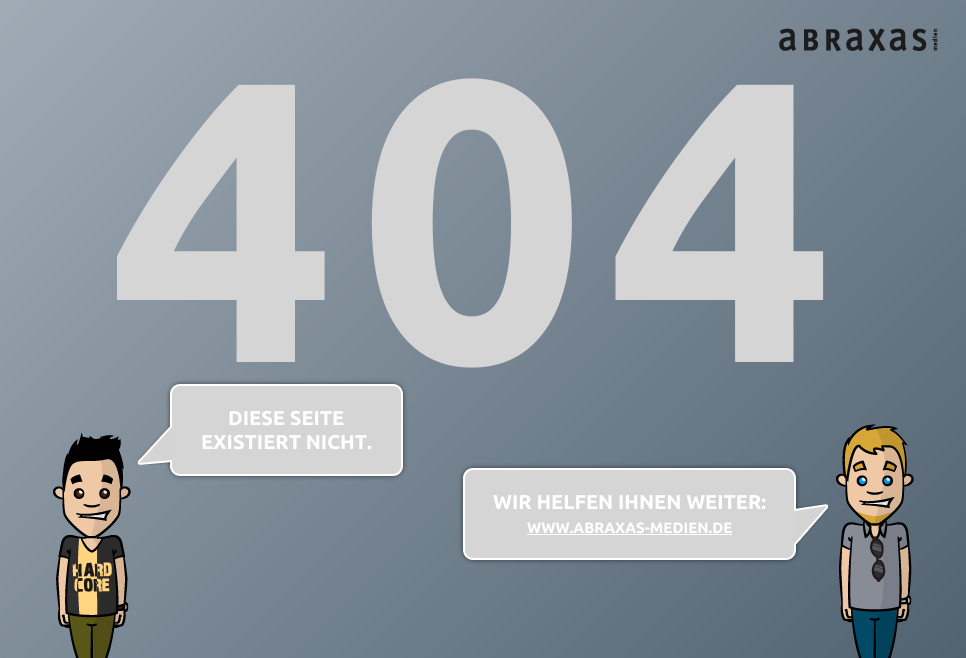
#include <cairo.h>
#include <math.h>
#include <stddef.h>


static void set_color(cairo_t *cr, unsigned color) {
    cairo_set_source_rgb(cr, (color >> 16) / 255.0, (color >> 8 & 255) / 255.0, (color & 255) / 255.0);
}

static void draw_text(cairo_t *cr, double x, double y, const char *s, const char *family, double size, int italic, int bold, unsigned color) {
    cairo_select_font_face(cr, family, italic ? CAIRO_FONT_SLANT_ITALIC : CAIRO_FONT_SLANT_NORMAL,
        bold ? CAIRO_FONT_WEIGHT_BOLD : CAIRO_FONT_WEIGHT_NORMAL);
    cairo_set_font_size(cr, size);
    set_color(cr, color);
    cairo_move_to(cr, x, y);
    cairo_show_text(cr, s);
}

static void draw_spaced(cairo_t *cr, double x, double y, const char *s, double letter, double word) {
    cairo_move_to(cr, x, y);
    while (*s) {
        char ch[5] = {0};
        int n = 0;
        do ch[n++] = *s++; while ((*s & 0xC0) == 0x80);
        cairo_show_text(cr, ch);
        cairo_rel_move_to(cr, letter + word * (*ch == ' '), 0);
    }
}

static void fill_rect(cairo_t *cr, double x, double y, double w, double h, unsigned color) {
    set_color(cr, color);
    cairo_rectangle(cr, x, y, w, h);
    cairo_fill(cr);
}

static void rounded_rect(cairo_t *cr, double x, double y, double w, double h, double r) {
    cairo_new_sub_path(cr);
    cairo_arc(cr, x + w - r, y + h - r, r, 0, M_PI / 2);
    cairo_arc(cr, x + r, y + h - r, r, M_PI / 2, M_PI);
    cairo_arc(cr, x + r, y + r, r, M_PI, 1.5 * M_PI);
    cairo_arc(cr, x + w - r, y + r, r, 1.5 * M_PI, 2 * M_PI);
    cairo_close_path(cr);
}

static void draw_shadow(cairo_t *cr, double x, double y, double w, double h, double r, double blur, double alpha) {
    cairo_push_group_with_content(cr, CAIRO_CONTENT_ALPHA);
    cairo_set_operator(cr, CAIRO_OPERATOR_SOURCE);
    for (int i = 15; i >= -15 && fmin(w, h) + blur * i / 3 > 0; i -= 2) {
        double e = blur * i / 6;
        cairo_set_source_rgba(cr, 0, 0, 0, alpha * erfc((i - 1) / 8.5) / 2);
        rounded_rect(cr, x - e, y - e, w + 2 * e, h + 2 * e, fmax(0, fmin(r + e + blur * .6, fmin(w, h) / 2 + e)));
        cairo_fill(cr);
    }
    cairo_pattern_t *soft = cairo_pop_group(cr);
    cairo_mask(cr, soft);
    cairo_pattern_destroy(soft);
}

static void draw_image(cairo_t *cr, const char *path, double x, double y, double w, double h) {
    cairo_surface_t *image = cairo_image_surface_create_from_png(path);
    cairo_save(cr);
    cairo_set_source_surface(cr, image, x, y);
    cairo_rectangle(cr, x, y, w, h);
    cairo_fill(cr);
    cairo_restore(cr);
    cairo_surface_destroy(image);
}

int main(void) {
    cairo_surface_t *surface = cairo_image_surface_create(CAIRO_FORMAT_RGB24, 966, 658);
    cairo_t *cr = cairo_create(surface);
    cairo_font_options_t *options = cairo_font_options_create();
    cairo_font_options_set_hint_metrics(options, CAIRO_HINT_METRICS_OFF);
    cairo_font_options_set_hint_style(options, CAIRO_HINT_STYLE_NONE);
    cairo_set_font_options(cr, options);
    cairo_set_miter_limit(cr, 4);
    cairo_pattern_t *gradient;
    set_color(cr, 0xFFFFFF);
    cairo_paint(cr);
    gradient = cairo_pattern_create_linear(70, -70, 896, 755);
    cairo_pattern_add_color_stop_rgba(gradient, 0, 0.624, 0.671, 0.71, 1);
    cairo_pattern_add_color_stop_rgba(gradient, 1, 0.314, 0.38, 0.439, 1);
    cairo_set_source(cr, gradient);
    cairo_pattern_destroy(gradient);
    cairo_rectangle(cr, 0, 0, 966, 658);
    cairo_fill(cr);
    draw_image(cr, "assets/img1.png", 779, 28, 159, 23);
    cairo_select_font_face(cr, "Ubuntu", CAIRO_FONT_SLANT_NORMAL, CAIRO_FONT_WEIGHT_BOLD);
    cairo_set_font_size(cr, 400);
    set_color(cr, 0xD5D5D5);
    draw_spaced(cr, 109, 362, "404", 22, 0);
    draw_image(cr, "assets/img2.png", 53, 432, 78, 226);
    set_color(cr, 0x020203);
    draw_shadow(cr, 170, 384, 233, 92, 10, 2.5, 0.55);
    set_color(cr, 0xD5D5D5);
    rounded_rect(cr, 171, 385, 231, 90, 9);
    cairo_fill_preserve(cr);
    set_color(cr, 0xFFFFFF);
    cairo_stroke(cr);
    draw_text(cr, 228, 425, "DIESE SEITE", "Ubuntu", 20, 0, 1, 0xFFFFFF);
    draw_image(cr, "assets/img3.png", 138, 426, 34, 39);
    draw_text(cr, 201, 449, "EXISTIERT NICHT.", "Ubuntu", 20, 0, 1, 0xFFFFFF);
    set_color(cr, 0x020203);
    draw_shadow(cr, 463, 468, 333, 92, 10, 2.5, 0.55);
    set_color(cr, 0xD5D5D5);
    rounded_rect(cr, 464, 469, 331, 90, 9);
    cairo_fill_preserve(cr);
    set_color(cr, 0xFFFFFF);
    cairo_stroke(cr);
    draw_text(cr, 493, 509, "WIR HELFEN IHNEN WEITER:", "Ubuntu", 20, 0, 1, 0xFFFFFF);
    draw_text(cr, 527, 533, "WWW.ABRAXAS-MEDIEN.DE", "Ubuntu", 15, 0, 1, 0xFFFFFF);
    fill_rect(cr, 527, 534, 205, 1, 0xFFFFFF);
    draw_image(cr, "assets/img4.png", 794, 504, 34, 40);
    draw_image(cr, "assets/img5.png", 836, 424, 78, 234);
    cairo_surface_write_to_png(surface, "output.png");
    cairo_font_options_destroy(options);
    cairo_destroy(cr);
    cairo_surface_destroy(surface);
    return 0;
}
